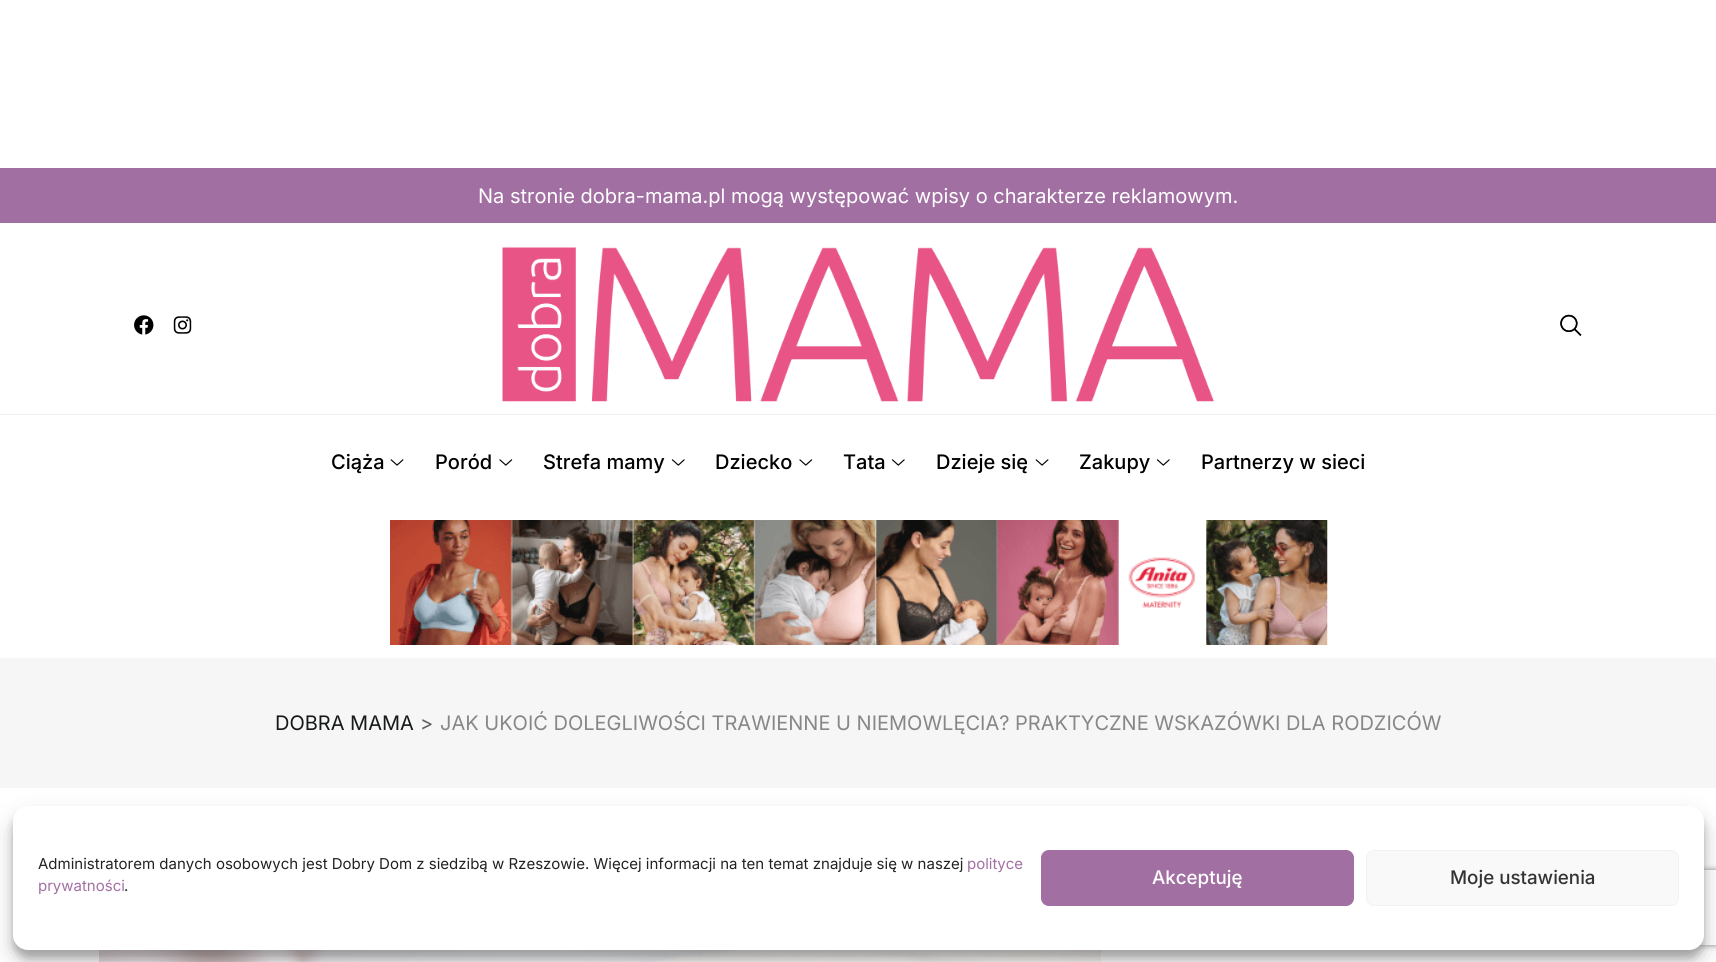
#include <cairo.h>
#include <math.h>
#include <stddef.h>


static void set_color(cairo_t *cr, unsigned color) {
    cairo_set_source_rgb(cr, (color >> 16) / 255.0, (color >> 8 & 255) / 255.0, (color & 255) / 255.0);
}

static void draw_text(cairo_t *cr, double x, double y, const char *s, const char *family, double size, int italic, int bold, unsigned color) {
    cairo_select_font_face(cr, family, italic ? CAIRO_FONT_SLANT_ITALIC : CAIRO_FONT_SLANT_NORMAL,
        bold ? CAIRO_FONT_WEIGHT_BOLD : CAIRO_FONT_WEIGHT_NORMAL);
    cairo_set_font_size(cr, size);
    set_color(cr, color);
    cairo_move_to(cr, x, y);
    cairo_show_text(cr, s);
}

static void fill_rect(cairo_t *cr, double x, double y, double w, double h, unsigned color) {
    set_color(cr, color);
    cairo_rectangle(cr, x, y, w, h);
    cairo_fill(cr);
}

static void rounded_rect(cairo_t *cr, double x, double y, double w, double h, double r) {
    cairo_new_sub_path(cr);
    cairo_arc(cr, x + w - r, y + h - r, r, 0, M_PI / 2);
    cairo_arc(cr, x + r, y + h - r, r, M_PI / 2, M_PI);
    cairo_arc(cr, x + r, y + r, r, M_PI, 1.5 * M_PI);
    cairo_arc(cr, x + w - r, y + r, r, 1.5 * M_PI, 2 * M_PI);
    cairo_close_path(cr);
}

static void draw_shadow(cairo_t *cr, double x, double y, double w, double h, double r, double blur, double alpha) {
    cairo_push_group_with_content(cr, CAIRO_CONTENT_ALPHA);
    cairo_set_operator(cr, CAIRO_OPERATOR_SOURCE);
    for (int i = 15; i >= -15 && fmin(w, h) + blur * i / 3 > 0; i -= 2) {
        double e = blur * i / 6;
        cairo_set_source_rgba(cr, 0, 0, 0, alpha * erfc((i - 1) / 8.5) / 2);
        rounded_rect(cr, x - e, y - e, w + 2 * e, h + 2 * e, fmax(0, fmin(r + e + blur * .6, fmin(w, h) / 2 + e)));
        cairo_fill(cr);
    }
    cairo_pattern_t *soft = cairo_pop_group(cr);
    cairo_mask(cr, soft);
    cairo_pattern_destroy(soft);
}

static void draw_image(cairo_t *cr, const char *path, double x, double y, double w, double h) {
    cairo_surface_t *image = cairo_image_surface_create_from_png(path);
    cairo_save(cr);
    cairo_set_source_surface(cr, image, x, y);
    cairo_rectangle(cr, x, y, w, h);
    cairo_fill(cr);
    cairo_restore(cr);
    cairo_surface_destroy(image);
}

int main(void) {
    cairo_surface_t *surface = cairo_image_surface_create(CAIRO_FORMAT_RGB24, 1716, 962);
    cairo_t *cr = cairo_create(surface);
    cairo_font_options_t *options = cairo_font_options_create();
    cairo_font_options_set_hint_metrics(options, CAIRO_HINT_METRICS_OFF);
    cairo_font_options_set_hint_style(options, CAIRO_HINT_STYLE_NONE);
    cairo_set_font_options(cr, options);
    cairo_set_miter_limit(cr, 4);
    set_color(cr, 0xFFFFFF);
    cairo_paint(cr);
    fill_rect(cr, 0, 168, 1716, 55, 0xA26FA3);
    draw_text(cr, 478, 203, "Na stronie dobra-mama.pl mogą występować wpisy o charakterze reklamowym.", "Inter", 20, 0, 0, 0xFFFFFF);
    draw_image(cr, "assets/img1.png", 134, 315, 20, 20);
    draw_image(cr, "assets/img2.png", 173, 316, 19, 18);
    draw_image(cr, "assets/img3.png", 502, 247, 712, 155);
    draw_image(cr, "assets/img4.png", 1560, 314, 22, 22);
    fill_rect(cr, 0, 414, 1716, 1, 0xF0F0F0);
    draw_text(cr, 331, 469, "Ciąża", "Inter Medium", 20, 0, 0, 0x000000);
    draw_image(cr, "assets/img5.png", 390, 459, 14, 7);
    draw_text(cr, 435, 469, "Poród", "Inter Medium", 20, 0, 0, 0x000000);
    draw_image(cr, "assets/img6.png", 499, 459, 14, 7);
    draw_text(cr, 543, 469, "Strefa mamy", "Inter Medium", 20, 0, 0, 0x000000);
    draw_image(cr, "assets/img7.png", 671, 459, 14, 7);
    draw_text(cr, 715, 469, "Dziecko", "Inter Medium", 20, 0, 0, 0x000000);
    draw_image(cr, "assets/img6.png", 799, 459, 14, 7);
    draw_text(cr, 843, 469, "Tata", "Inter Medium", 20, 0, 0, 0x000000);
    draw_image(cr, "assets/img7.png", 891, 459, 14, 7);
    draw_text(cr, 936, 469, "Dzieje się", "Inter Medium", 20, 0, 0, 0x000000);
    draw_image(cr, "assets/img5.png", 1035, 459, 14, 7);
    draw_text(cr, 1079, 469, "Zakupy", "Inter Medium", 20, 0, 0, 0x000000);
    draw_image(cr, "assets/img7.png", 1156, 459, 14, 7);
    draw_text(cr, 1201, 469, "Partnerzy w sieci", "Inter Medium", 20, 0, 0, 0x000000);
    draw_image(cr, "assets/img8.png", 390, 520, 938, 125);
    fill_rect(cr, 0, 658, 1716, 130, 0xF6F6F6);
    draw_text(cr, 275, 730, "DOBRA MAMA", "Inter", 20, 0, 0, 0x151A17);
    draw_text(cr, 420, 730, ">", "Inter", 20, 0, 0, 0x5E5E5E);
    draw_text(cr, 440, 730, "JAK UKOIĆ DOLEGLIWOŚCI TRAWIENNE U NIEMOWLĘCIA? PRAKTYCZNE WSKAZÓWKI DLA RODZICÓW", "Inter", 20, 0, 0, 0x868887);
    draw_image(cr, "assets/img9.png", 99, 950, 1003, 12);
    set_color(cr, 0x000000);
    draw_shadow(cr, 13, 814, 1691, 144, 15, 4, 0.23);
    draw_shadow(cr, 13, 819, 1691, 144, 15, 12.5, 0.19);
    cairo_save(cr);
    cairo_set_fill_rule(cr, CAIRO_FILL_RULE_EVEN_ODD);
    cairo_new_path(cr);
    cairo_move_to(cr, 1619, 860);
    cairo_line_to(cr, 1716, 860);
    cairo_line_to(cr, 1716, 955);
    cairo_line_to(cr, 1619, 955);
    cairo_close_path(cr);
    cairo_move_to(cr, 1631.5, 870);
    cairo_line_to(cr, 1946.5, 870);
    cairo_curve_to(cr, 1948, 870, 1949, 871, 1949, 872.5);
    cairo_line_to(cr, 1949, 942.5);
    cairo_curve_to(cr, 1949, 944, 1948, 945, 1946.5, 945);
    cairo_line_to(cr, 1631.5, 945);
    cairo_curve_to(cr, 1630, 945, 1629, 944, 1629, 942.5);
    cairo_line_to(cr, 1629, 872.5);
    cairo_curve_to(cr, 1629, 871, 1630, 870, 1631.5, 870);
    cairo_close_path(cr);
    cairo_clip(cr);
    set_color(cr, 0x808080);
    draw_shadow(cr, 1629, 870, 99, 75, 2.5, 3, 1);
    cairo_restore(cr);
    set_color(cr, 0xFFFFFF);
    rounded_rect(cr, 13, 806, 1691, 144, 15);
    cairo_fill(cr);
    draw_text(cr, 38, 869, "Administratorem danych osobowych jest Dobry Dom z siedzibą w Rzeszowie. Więcej informacji na ten temat znajduje się w naszej", "Inter", 15, 0, 0, 0x222222);
    draw_text(cr, 967, 869, "polityce", "Inter", 15, 0, 0, 0xA26FA3);
    draw_text(cr, 38, 891, "prywatności", "Inter", 15, 0, 0, 0xA26FA3);
    draw_text(cr, 124, 891, ".", "Inter", 15, 0, 0, 0x222222);
    set_color(cr, 0xA26FA3);
    rounded_rect(cr, 1041.5, 850.5, 312, 55, 7.5);
    cairo_fill_preserve(cr);
    cairo_set_line_width(cr, 1);
    cairo_stroke(cr);
    draw_text(cr, 1152, 884, "Akceptuję", "Inter Medium", 18.75, 0, 0, 0xFFFFFF);
    set_color(cr, 0xF9F9F9);
    rounded_rect(cr, 1366.5, 850.5, 312, 55, 7.5);
    cairo_fill_preserve(cr);
    set_color(cr, 0xF2F2F2);
    cairo_stroke(cr);
    draw_text(cr, 1450, 884, "Moje ustawienia", "Inter Medium", 18.75, 0, 0, 0x333333);
    cairo_surface_write_to_png(surface, "output.png");
    cairo_font_options_destroy(options);
    cairo_destroy(cr);
    cairo_surface_destroy(surface);
    return 0;
}
